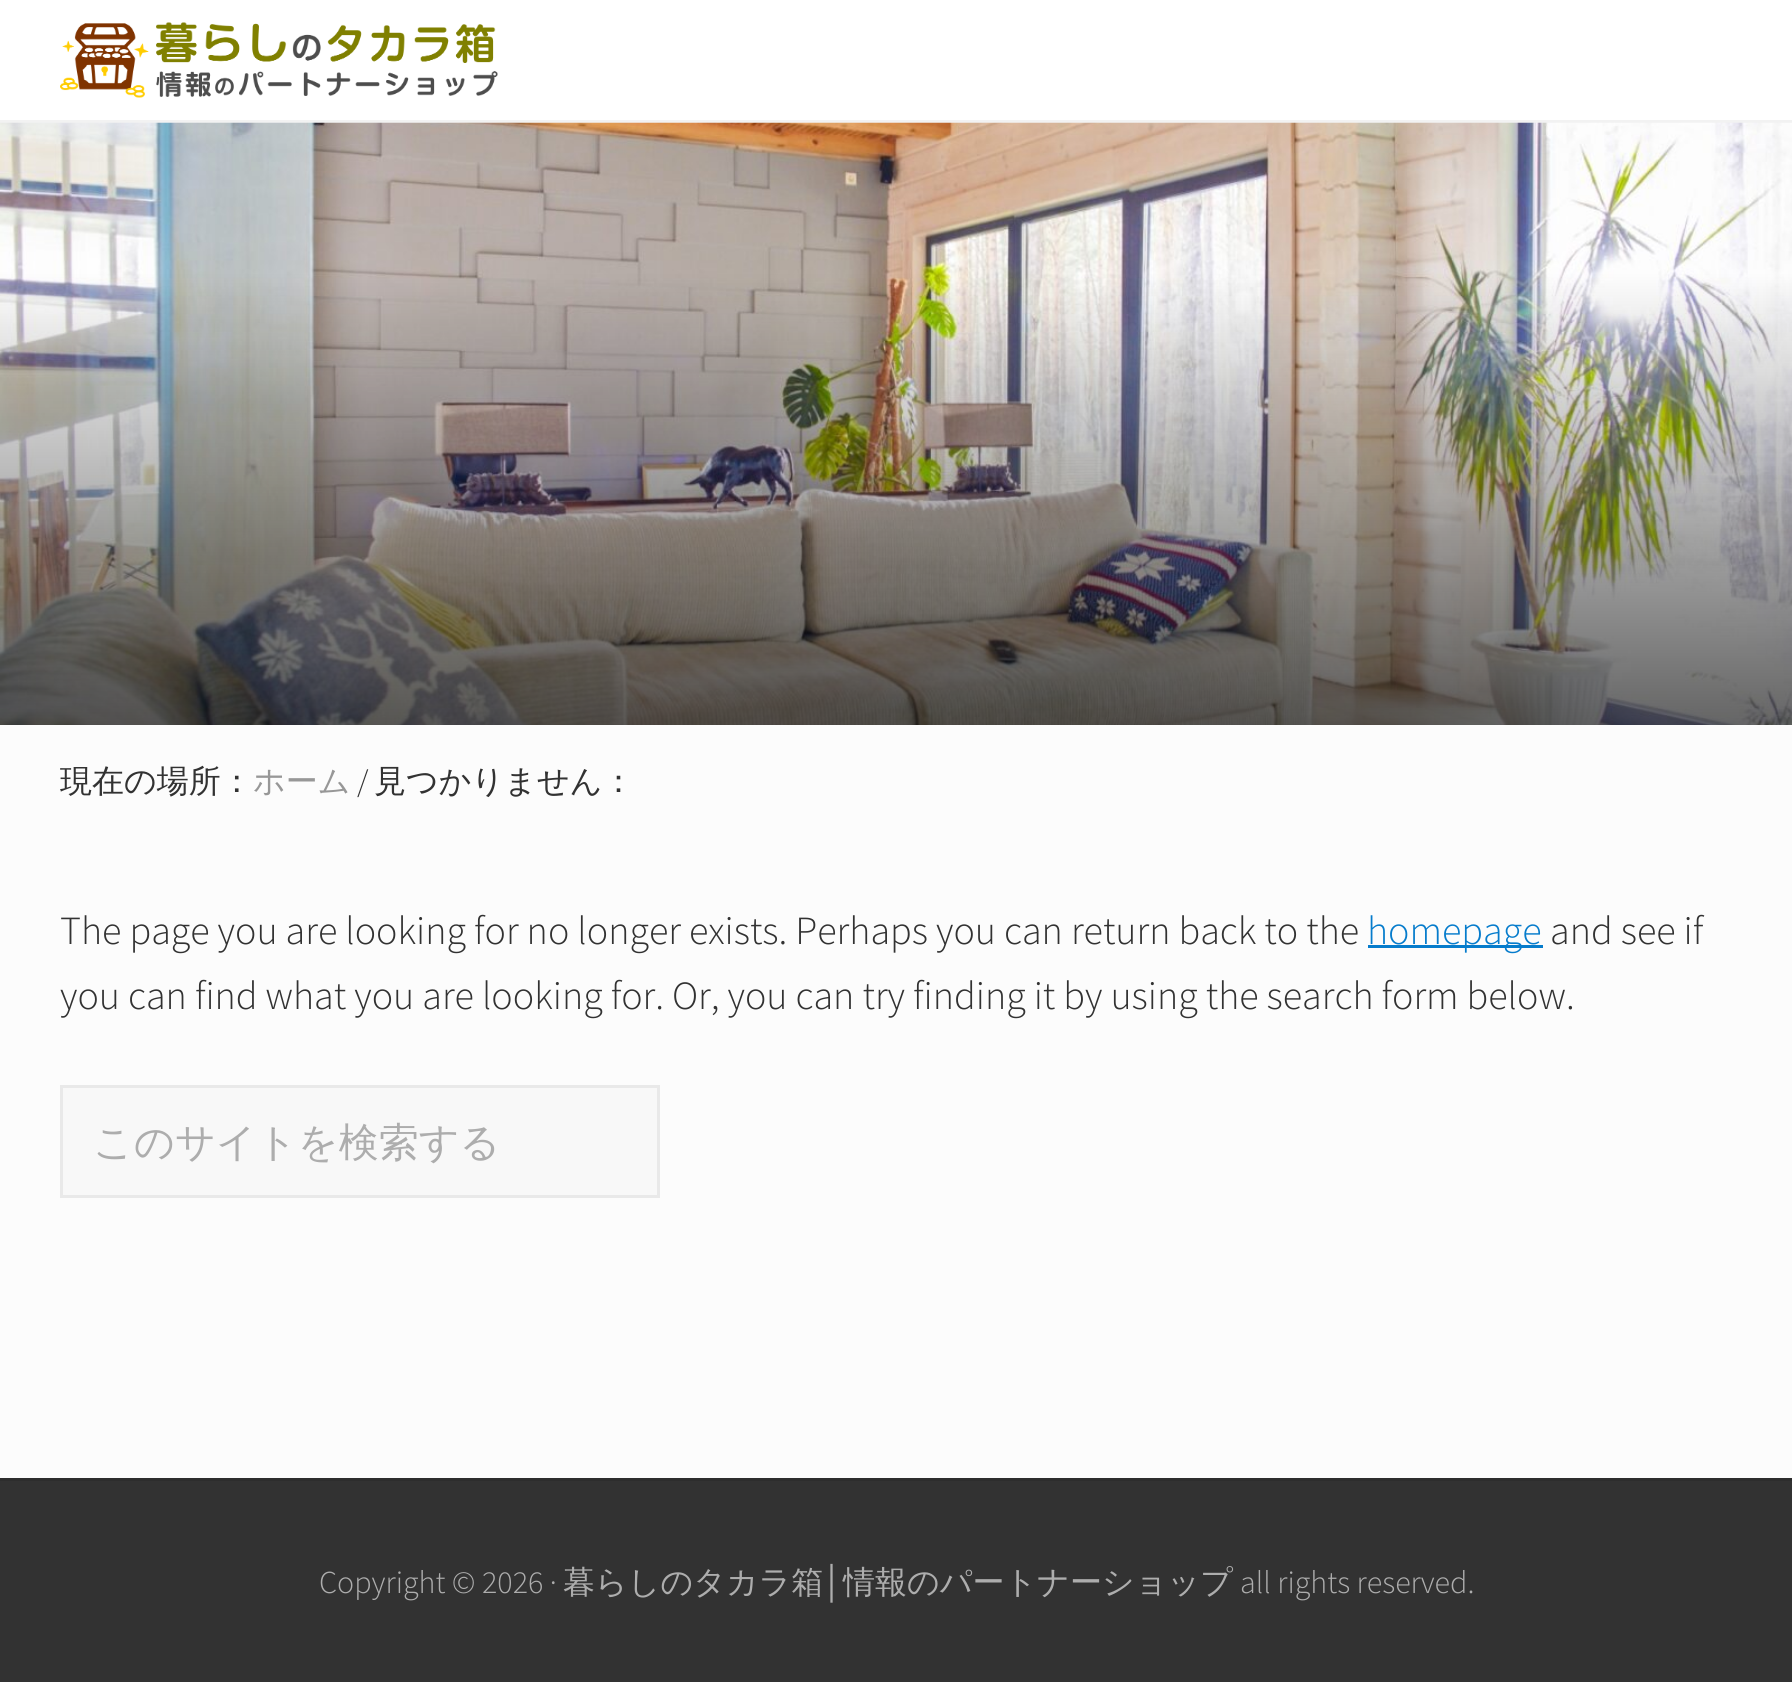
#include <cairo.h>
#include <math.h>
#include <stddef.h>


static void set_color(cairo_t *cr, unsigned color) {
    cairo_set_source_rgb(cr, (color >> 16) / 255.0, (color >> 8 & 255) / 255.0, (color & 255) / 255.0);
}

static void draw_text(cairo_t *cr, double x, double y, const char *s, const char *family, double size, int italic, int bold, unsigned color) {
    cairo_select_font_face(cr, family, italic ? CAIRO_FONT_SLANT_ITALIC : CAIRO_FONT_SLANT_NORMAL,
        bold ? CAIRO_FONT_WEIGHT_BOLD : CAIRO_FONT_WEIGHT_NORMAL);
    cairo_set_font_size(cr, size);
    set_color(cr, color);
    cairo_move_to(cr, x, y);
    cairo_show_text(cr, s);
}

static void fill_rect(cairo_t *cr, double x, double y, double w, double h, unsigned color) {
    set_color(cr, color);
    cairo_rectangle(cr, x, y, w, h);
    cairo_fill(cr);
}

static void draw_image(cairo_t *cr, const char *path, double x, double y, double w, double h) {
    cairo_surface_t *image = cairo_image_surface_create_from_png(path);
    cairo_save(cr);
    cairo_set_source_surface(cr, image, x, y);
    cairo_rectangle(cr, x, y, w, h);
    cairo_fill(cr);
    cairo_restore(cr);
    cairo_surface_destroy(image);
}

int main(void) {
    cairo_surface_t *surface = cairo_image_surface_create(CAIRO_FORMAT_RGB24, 1792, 1682);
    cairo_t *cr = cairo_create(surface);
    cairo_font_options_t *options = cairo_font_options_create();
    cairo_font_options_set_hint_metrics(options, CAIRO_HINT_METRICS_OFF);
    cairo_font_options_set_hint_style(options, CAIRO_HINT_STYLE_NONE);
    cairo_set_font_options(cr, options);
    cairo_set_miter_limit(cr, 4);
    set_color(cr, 0xFCFCFC);
    cairo_paint(cr);
    fill_rect(cr, 0, 0, 1792, 120, 0xFFFFFF);
    fill_rect(cr, 0, 120, 1792, 3, 0xF2F2F2);
    draw_image(cr, "assets/img1.png", 60, 22, 438, 76);
    draw_image(cr, "assets/img2.png", 0, 122, 1792, 603);
    draw_text(cr, 60, 792, "現在の場所：", "WenQuanYi Zen Hei Medium", 32, 0, 0, 0x323232);
    draw_text(cr, 253, 792, "ホーム", "WenQuanYi Zen Hei Medium", 32, 0, 0, 0x979797);
    draw_text(cr, 357, 792, "/", "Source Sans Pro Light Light", 32, 0, 0, 0x323232);
    draw_text(cr, 374, 792, "見つかりません：", "WenQuanYi Zen Hei Medium", 32, 0, 0, 0x323232);
    draw_text(cr, 60, 944, "The page you are looking for no longer exists. Perhaps you can return back to the", "Source Sans Pro Light Light", 40, 0, 0, 0x323232);
    fill_rect(cr, 1368, 945, 175, 3, 0x067CCC);
    draw_text(cr, 1367, 944, "homepage", "Source Sans Pro Light Light", 40, 0, 0, 0x067CCC);
    draw_text(cr, 1550, 944, "and see if", "Source Sans Pro Light Light", 40, 0, 0, 0x323232);
    draw_text(cr, 60, 1009, "you can find what you are looking for. Or, you can try finding it by using the search form below.", "Source Sans Pro Light Light", 40, 0, 0, 0x323232);
    set_color(cr, 0xF8F8F8);
    cairo_rectangle(cr, 61.5, 1086.5, 597, 110);
    cairo_fill_preserve(cr);
    set_color(cr, 0xE9E9E9);
    cairo_set_line_width(cr, 3);
    cairo_stroke(cr);
    draw_text(cr, 93, 1156, "このサイトを検索する", "WenQuanYi Zen Hei Medium", 40, 0, 0, 0xADADAD);
    fill_rect(cr, 0, 1481, 1792, 201, 0x323232);
    fill_rect(cr, 0, 1478, 1792, 3, 0x2D2D2D);
    draw_text(cr, 319, 1593, "Copyright © 2026 ·", "Source Sans Pro Light Light", 32, 0, 0, 0xADADAD);
    draw_text(cr, 563, 1593, "暮らしのタカラ箱", "WenQuanYi Zen Hei Medium", 32, 0, 0, 0xADADAD);
    draw_text(cr, 823, 1593, "│", "Liberation Sans", 32, 0, 0, 0xADADAD);
    draw_text(cr, 843, 1593, "情報のパートナーショップ", "WenQuanYi Zen Hei Medium", 32, 0, 0, 0xADADAD);
    draw_text(cr, 1240, 1593, "all rights reserved.", "Source Sans Pro Light Light", 32, 0, 0, 0xADADAD);
    cairo_surface_write_to_png(surface, "output.png");
    cairo_font_options_destroy(options);
    cairo_destroy(cr);
    cairo_surface_destroy(surface);
    return 0;
}
